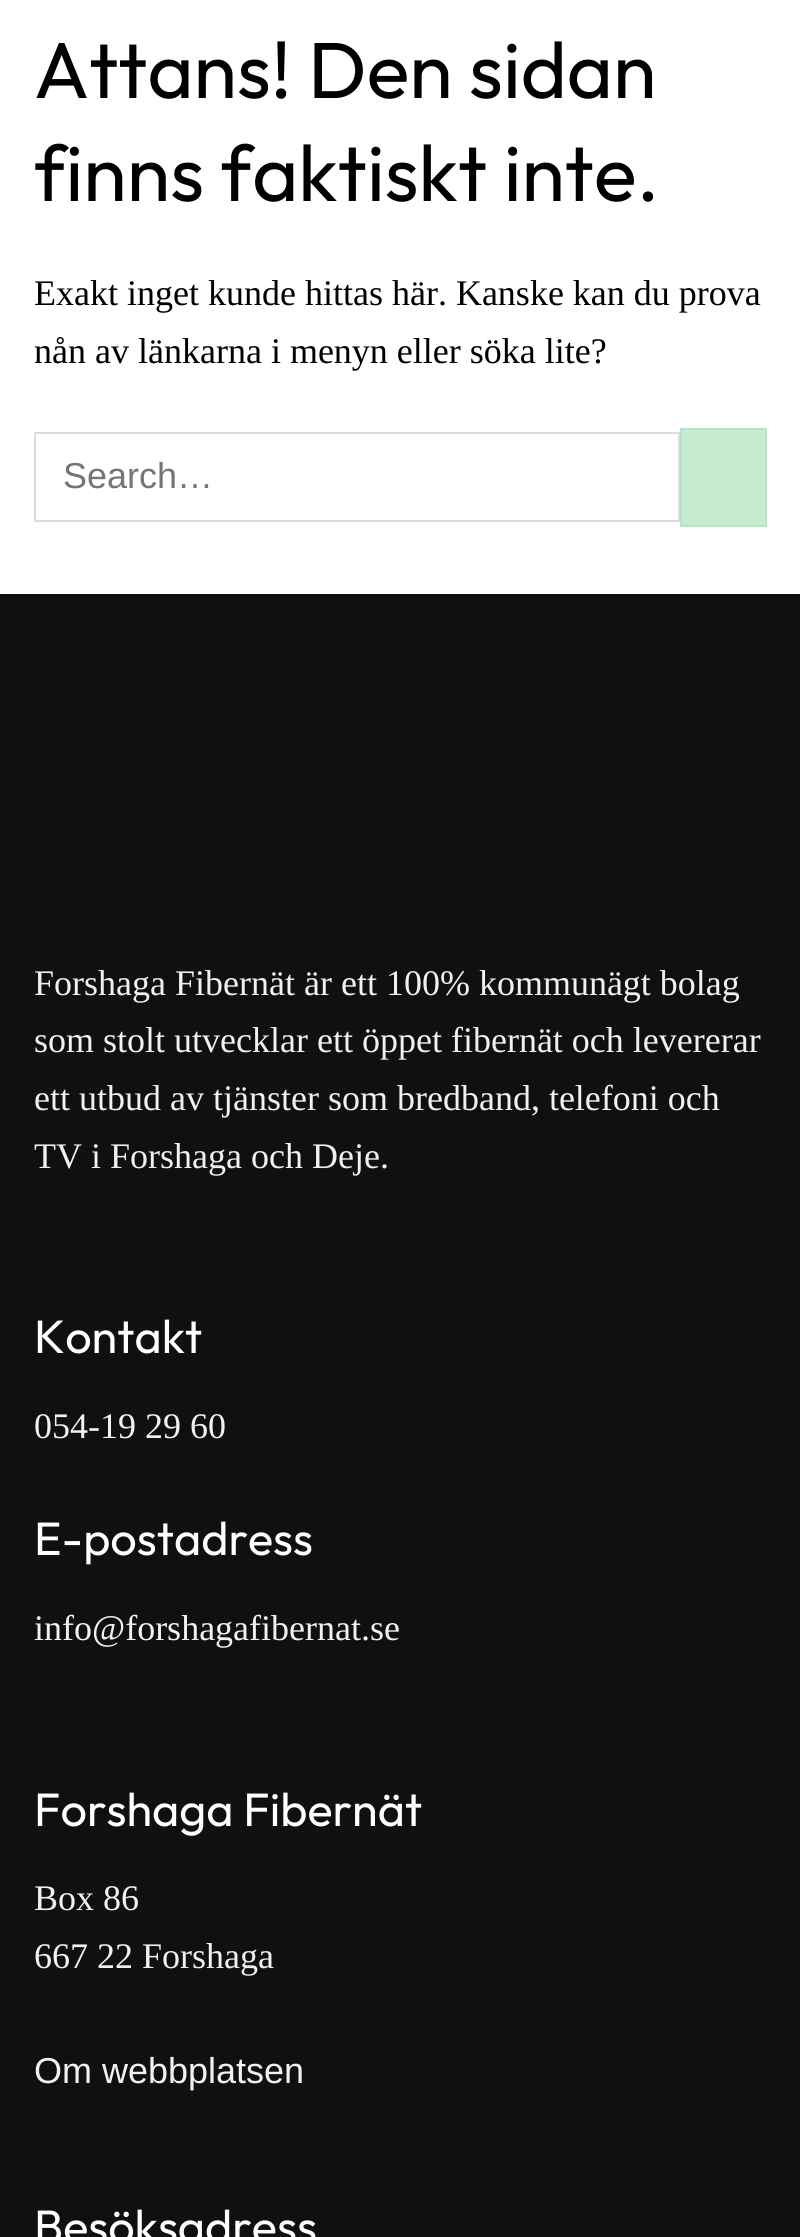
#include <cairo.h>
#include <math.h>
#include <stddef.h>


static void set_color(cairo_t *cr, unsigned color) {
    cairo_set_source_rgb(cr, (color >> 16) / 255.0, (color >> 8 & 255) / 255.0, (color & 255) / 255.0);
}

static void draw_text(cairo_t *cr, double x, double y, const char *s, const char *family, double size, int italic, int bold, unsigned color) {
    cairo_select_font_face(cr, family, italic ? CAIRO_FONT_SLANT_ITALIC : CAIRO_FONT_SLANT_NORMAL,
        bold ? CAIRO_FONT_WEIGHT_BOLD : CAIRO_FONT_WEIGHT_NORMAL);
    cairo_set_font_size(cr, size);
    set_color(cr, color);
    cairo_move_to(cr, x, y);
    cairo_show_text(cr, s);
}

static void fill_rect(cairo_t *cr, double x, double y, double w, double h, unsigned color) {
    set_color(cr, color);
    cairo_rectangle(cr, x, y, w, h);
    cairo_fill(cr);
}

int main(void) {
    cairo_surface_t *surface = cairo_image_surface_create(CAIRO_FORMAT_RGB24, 800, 2237);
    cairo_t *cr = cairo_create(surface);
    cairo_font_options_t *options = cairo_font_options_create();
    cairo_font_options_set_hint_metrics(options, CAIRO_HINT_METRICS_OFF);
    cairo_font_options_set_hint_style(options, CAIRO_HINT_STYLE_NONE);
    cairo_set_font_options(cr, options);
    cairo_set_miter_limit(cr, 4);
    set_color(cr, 0xFFFFFF);
    cairo_paint(cr);
    draw_text(cr, 34, 98, "Attans! Den sidan", "Outfit", 79.25, 0, 0, 0x000000);
    draw_text(cr, 34, 201, "finns faktiskt inte.", "Outfit", 79.25, 0, 0, 0x000000);
    draw_text(cr, 34, 305, "Exakt inget kunde hittas här. Kanske kan du prova", "Liberation Serif", 36, 0, 0, 0x000000);
    draw_text(cr, 34, 363, "nån av länkarna i menyn eller söka lite?", "Liberation Serif", 36, 0, 0, 0x000000);
    cairo_rectangle(cr, 35, 433, 644, 88);
    set_color(cr, 0xDDDDDD);
    cairo_stroke(cr);
    draw_text(cr, 63, 488, "Search…", "Liberation Sans", 36, 0, 0, 0x757575);
    set_color(cr, 0xC5EBD1);
    cairo_rectangle(cr, 681, 429, 85, 97);
    cairo_fill_preserve(cr);
    set_color(cr, 0xBBDFC7);
    cairo_stroke(cr);
    fill_rect(cr, 0, 594, 800, 1643, 0x101010);
    draw_text(cr, 34, 995, "Forshaga Fibernät är ett 100% kommunägt bolag", "Liberation Serif", 36, 0, 0, 0xF1F1F1);
    draw_text(cr, 34, 1052, "som stolt utvecklar ett öppet fibernät och levererar", "Liberation Serif", 36, 0, 0, 0xF1F1F1);
    draw_text(cr, 34, 1110, "ett utbud av tjänster som bredband, telefoni och", "Liberation Serif", 36, 0, 0, 0xF1F1F1);
    draw_text(cr, 34, 1168, "TV i Forshaga och Deje.", "Liberation Serif", 36, 0, 0, 0xF1F1F1);
    draw_text(cr, 34, 1353, "Kontakt", "Outfit", 46.75, 0, 0, 0xFFFFFF);
    draw_text(cr, 34, 1438, "054-19 29 60", "Liberation Serif", 36, 0, 0, 0xF1F1F1);
    draw_text(cr, 34, 1555, "E-postadress", "Outfit", 46.75, 0, 0, 0xFFFFFF);
    draw_text(cr, 34, 1640, "info@forshagafibernat.se", "Liberation Serif", 36, 0, 0, 0xF1F1F1);
    draw_text(cr, 34, 1826, "Forshaga Fibernät", "Outfit", 46.75, 0, 0, 0xFFFFFF);
    draw_text(cr, 34, 1910, "Box 86", "Liberation Serif", 36, 0, 0, 0xF1F1F1);
    draw_text(cr, 34, 1968, "667 22 Forshaga", "Liberation Serif", 36, 0, 0, 0xF1F1F1);
    draw_text(cr, 34, 2083, "Om webbplatsen", "Liberation Sans", 36, 0, 0, 0xF1F1F1);
    draw_text(cr, 34, 2243, "Besöksadress", "Outfit", 46.75, 0, 0, 0xFFFFFF);
    cairo_surface_write_to_png(surface, "output.png");
    cairo_font_options_destroy(options);
    cairo_destroy(cr);
    cairo_surface_destroy(surface);
    return 0;
}
